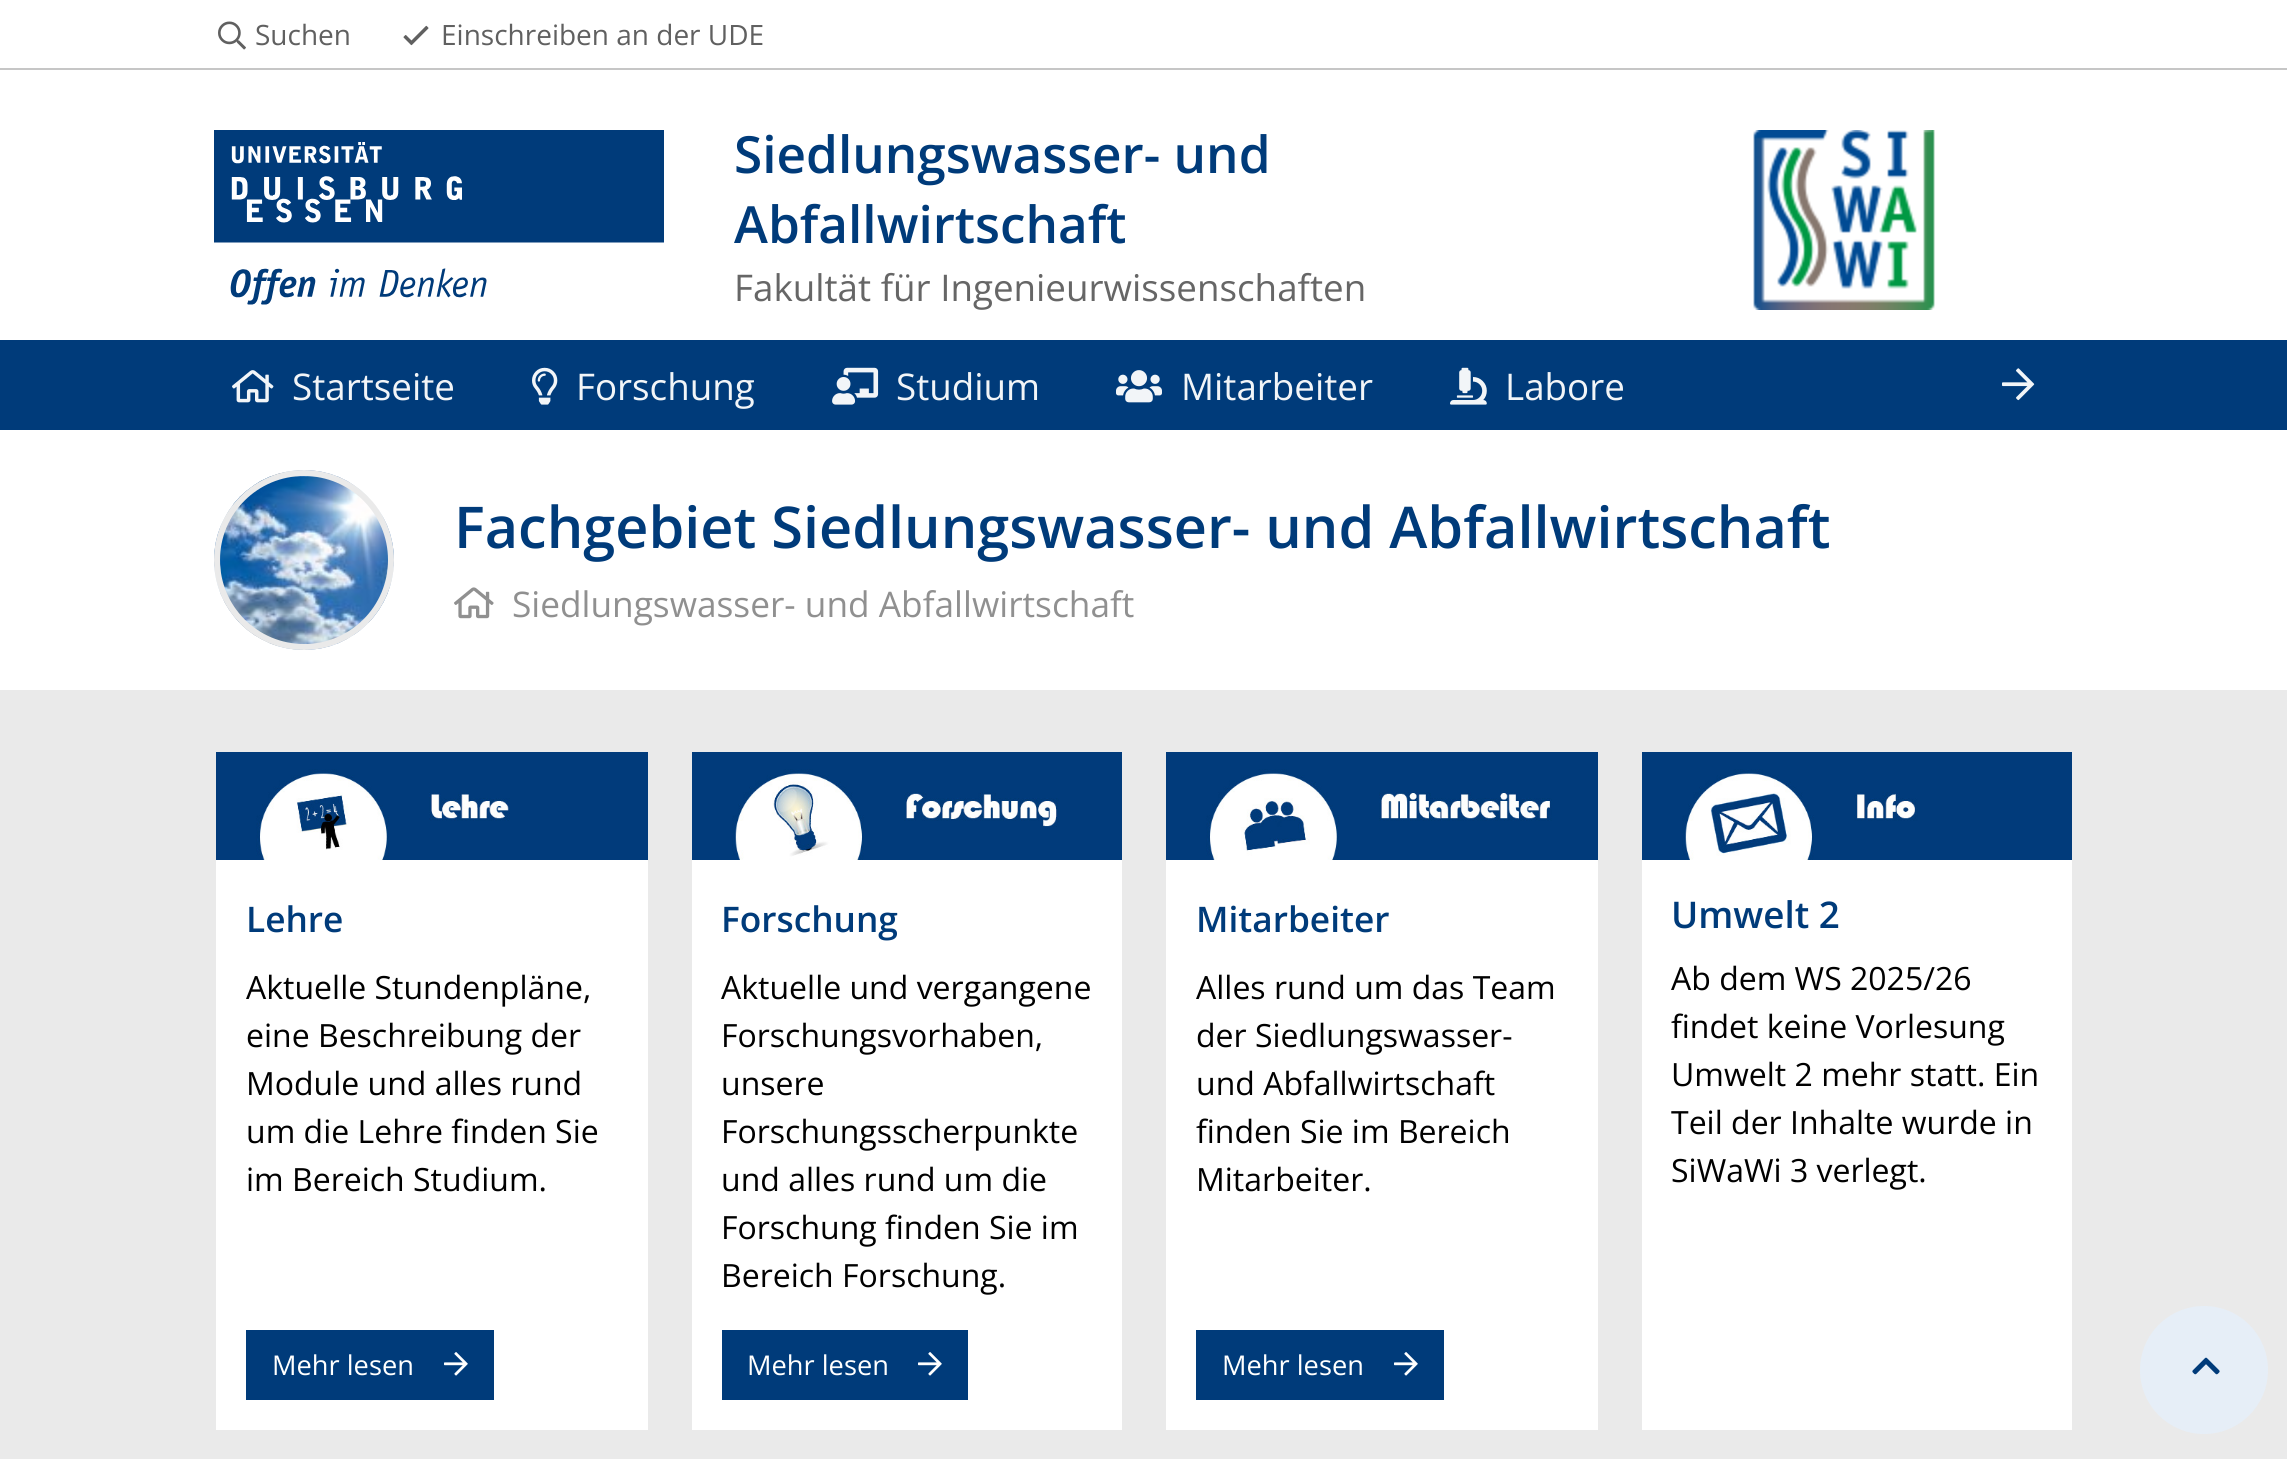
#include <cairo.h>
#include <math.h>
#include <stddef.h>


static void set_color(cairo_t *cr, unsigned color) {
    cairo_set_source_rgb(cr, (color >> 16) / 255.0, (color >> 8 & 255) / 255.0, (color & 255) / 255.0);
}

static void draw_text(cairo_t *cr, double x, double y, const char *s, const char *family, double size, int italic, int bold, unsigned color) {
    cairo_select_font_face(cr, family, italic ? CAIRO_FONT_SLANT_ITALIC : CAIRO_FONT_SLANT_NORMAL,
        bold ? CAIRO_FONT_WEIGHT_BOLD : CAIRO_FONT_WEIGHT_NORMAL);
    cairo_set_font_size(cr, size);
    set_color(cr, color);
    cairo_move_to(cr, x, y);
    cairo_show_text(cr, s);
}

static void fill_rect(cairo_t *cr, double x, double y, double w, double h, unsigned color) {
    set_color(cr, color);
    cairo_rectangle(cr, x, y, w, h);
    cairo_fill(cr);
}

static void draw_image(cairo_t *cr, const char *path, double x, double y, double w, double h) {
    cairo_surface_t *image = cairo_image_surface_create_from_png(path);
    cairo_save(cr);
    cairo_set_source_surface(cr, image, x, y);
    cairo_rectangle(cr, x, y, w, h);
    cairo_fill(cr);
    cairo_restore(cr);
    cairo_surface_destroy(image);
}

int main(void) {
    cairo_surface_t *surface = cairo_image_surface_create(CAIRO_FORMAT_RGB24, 2287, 1459);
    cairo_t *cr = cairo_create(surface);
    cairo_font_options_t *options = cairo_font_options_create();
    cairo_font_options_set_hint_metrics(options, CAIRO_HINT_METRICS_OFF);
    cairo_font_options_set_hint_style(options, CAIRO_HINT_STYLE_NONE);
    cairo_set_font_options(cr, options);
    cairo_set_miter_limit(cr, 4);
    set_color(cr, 0xFFFFFF);
    cairo_paint(cr);
    fill_rect(cr, 0, 340, 2287, 90, 0x003B7A);
    fill_rect(cr, 0, 68, 2287, 2, 0xC6C6C6);
    draw_image(cr, "assets/img1.png", 218, 21, 28, 29);
    draw_text(cr, 255, 45, "Suchen", "Open Sans", 28, 0, 0, 0x606060);
    draw_image(cr, "assets/img2.png", 403, 25, 26, 21);
    draw_text(cr, 441, 45, "Einschreiben an der UDE", "Open Sans", 28, 0, 0, 0x606060);
    draw_image(cr, "assets/img3.png", 232, 370, 42, 33);
    draw_text(cr, 292, 400, "Startseite", "Open Sans", 36.75, 0, 0, 0xF2F5F8);
    draw_image(cr, "assets/img4.png", 532, 367, 26, 38);
    draw_text(cr, 576, 400, "Forschung", "Open Sans", 36.75, 0, 0, 0xF2F5F8);
    draw_image(cr, "assets/img5.png", 832, 367, 47, 38);
    draw_text(cr, 896, 400, "Studium", "Open Sans", 36.75, 0, 0, 0xF2F5F8);
    draw_image(cr, "assets/img6.png", 1116, 370, 46, 33);
    draw_text(cr, 1181, 400, "Mitarbeiter", "Open Sans", 36.75, 0, 0, 0xF2F5F8);
    draw_image(cr, "assets/img7.png", 1450, 367, 37, 38);
    draw_text(cr, 1505, 400, "Labore", "Open Sans", 36.75, 0, 0, 0xF2F5F8);
    draw_image(cr, "assets/img8.png", 2002, 368, 33, 33);
    draw_image(cr, "assets/img9.png", 214, 130, 450, 175);
    draw_text(cr, 734, 173, "Siedlungswasser- und", "Open Sans SemiBold", 51.25, 0, 0, 0x003B7A);
    draw_text(cr, 734, 243, "Abfallwirtschaft", "Open Sans SemiBold", 51.25, 0, 0, 0x003B7A);
    draw_image(cr, "assets/img10.png", 1753, 130, 182, 180);
    draw_text(cr, 734, 301, "Fakultät für Ingenieurwissenschaften", "Open Sans", 36.75, 0, 0, 0x666666);
    draw_image(cr, "assets/img11.png", 214, 470, 180, 180);
    cairo_arc(cr, 304, 560, 87, 0, 2 * M_PI);
    set_color(cr, 0xEAEAEA);
    cairo_set_line_width(cr, 6);
    cairo_stroke(cr);
    draw_text(cr, 454, 548, "Fachgebiet Siedlungswasser- und Abfallwirtschaft", "Open Sans SemiBold", 57.6, 0, 0, 0x003B7A);
    draw_image(cr, "assets/img12.png", 454, 587, 40, 32);
    draw_text(cr, 512, 617, "Siedlungswasser- und Abfallwirtschaft", "Open Sans", 35.25, 0, 0, 0x909090);
    fill_rect(cr, 0, 690, 2287, 769, 0xEAEAEA);
    fill_rect(cr, 216, 860, 432, 570, 0xFFFFFF);
    draw_image(cr, "assets/img13.png", 216, 752, 432, 108);
    draw_text(cr, 246, 932, "Lehre", "Open Sans SemiBold", 35.25, 0, 0, 0x003B7A);
    draw_text(cr, 246, 999, "Aktuelle Stundenpläne,", "Open Sans", 32, 0, 0, 0x000000);
    draw_text(cr, 246, 1047, "eine Beschreibung der", "Open Sans", 32, 0, 0, 0x000000);
    draw_text(cr, 246, 1095, "Module und alles rund", "Open Sans", 32, 0, 0, 0x000000);
    draw_text(cr, 246, 1143, "um die Lehre finden Sie", "Open Sans", 32, 0, 0, 0x000000);
    draw_text(cr, 246, 1191, "im Bereich Studium.", "Open Sans", 32, 0, 0, 0x000000);
    fill_rect(cr, 246, 1330, 248, 70, 0x003B7A);
    draw_text(cr, 272, 1375, "Mehr lesen", "Open Sans", 27.25, 0, 0, 0xFFFFFF);
    draw_image(cr, "assets/img14.png", 444, 1352, 24, 24);
    fill_rect(cr, 692, 860, 430, 570, 0xFFFFFF);
    draw_image(cr, "assets/img15.png", 692, 752, 430, 108);
    draw_text(cr, 721, 932, "Forschung", "Open Sans SemiBold", 35.25, 0, 0, 0x003B7A);
    draw_text(cr, 721, 999, "Aktuelle und vergangene", "Open Sans", 32, 0, 0, 0x000000);
    draw_text(cr, 721, 1047, "Forschungsvorhaben,", "Open Sans", 32, 0, 0, 0x000000);
    draw_text(cr, 721, 1095, "unsere", "Open Sans", 32, 0, 0, 0x000000);
    draw_text(cr, 721, 1143, "Forschungsscherpunkte", "Open Sans", 32, 0, 0, 0x000000);
    draw_text(cr, 721, 1191, "und alles rund um die", "Open Sans", 32, 0, 0, 0x000000);
    draw_text(cr, 721, 1239, "Forschung finden Sie im", "Open Sans", 32, 0, 0, 0x000000);
    draw_text(cr, 721, 1287, "Bereich Forschung.", "Open Sans", 32, 0, 0, 0x000000);
    fill_rect(cr, 722, 1330, 246, 70, 0x003B7A);
    draw_text(cr, 747, 1375, "Mehr lesen", "Open Sans", 27.25, 0, 0, 0xFFFFFF);
    draw_image(cr, "assets/img14.png", 918, 1352, 24, 24);
    fill_rect(cr, 1166, 860, 432, 570, 0xFFFFFF);
    draw_image(cr, "assets/img16.png", 1166, 752, 432, 108);
    draw_text(cr, 1196, 932, "Mitarbeiter", "Open Sans SemiBold", 35.25, 0, 0, 0x003B7A);
    draw_text(cr, 1196, 999, "Alles rund um das Team", "Open Sans", 32, 0, 0, 0x000000);
    draw_text(cr, 1196, 1047, "der Siedlungswasser-", "Open Sans", 32, 0, 0, 0x000000);
    draw_text(cr, 1196, 1095, "und Abfallwirtschaft", "Open Sans", 32, 0, 0, 0x000000);
    draw_text(cr, 1196, 1143, "finden Sie im Bereich", "Open Sans", 32, 0, 0, 0x000000);
    draw_text(cr, 1196, 1191, "Mitarbeiter.", "Open Sans", 32, 0, 0, 0x000000);
    fill_rect(cr, 1196, 1330, 248, 70, 0x003B7A);
    draw_text(cr, 1222, 1375, "Mehr lesen", "Open Sans", 27.25, 0, 0, 0xFFFFFF);
    draw_image(cr, "assets/img14.png", 1394, 1352, 24, 24);
    fill_rect(cr, 1642, 860, 430, 570, 0xFFFFFF);
    draw_image(cr, "assets/img17.png", 1642, 752, 430, 108);
    draw_text(cr, 1671, 928, "Umwelt 2", "Open Sans SemiBold", 36.75, 0, 0, 0x003B7A);
    draw_text(cr, 1671, 990, "Ab dem WS 2025/26", "Open Sans", 32, 0, 0, 0x000000);
    draw_text(cr, 1671, 1038, "findet keine Vorlesung", "Open Sans", 32, 0, 0, 0x000000);
    draw_text(cr, 1671, 1086, "Umwelt 2 mehr statt. Ein", "Open Sans", 32, 0, 0, 0x000000);
    draw_text(cr, 1671, 1134, "Teil der Inhalte wurde in", "Open Sans", 32, 0, 0, 0x000000);
    draw_text(cr, 1671, 1182, "SiWaWi 3 verlegt.", "Open Sans", 32, 0, 0, 0x000000);
    set_color(cr, 0xE6EEF7);
    cairo_new_path(cr);
    cairo_arc(cr, 2204, 1370, 64, 0, 2 * M_PI);
    cairo_fill(cr);
    draw_image(cr, "assets/img18.png", 2192, 1357, 28, 18);
    cairo_surface_write_to_png(surface, "output.png");
    cairo_font_options_destroy(options);
    cairo_destroy(cr);
    cairo_surface_destroy(surface);
    return 0;
}
